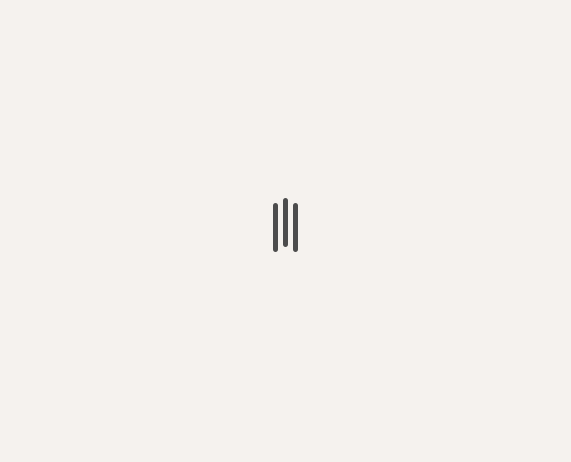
#include <cairo.h>
#include <math.h>
#include <stddef.h>


static void set_color(cairo_t *cr, unsigned color) {
    cairo_set_source_rgb(cr, (color >> 16) / 255.0, (color >> 8 & 255) / 255.0, (color & 255) / 255.0);
}

static void rounded_rect(cairo_t *cr, double x, double y, double w, double h, double r) {
    cairo_new_sub_path(cr);
    cairo_arc(cr, x + w - r, y + h - r, r, 0, M_PI / 2);
    cairo_arc(cr, x + r, y + h - r, r, M_PI / 2, M_PI);
    cairo_arc(cr, x + r, y + r, r, M_PI, 1.5 * M_PI);
    cairo_arc(cr, x + w - r, y + r, r, 1.5 * M_PI, 2 * M_PI);
    cairo_close_path(cr);
}

static void draw_image(cairo_t *cr, const char *path, double x, double y, double w, double h) {
    cairo_surface_t *image = cairo_image_surface_create_from_png(path);
    cairo_save(cr);
    cairo_set_source_surface(cr, image, x, y);
    cairo_rectangle(cr, x, y, w, h);
    cairo_fill(cr);
    cairo_restore(cr);
    cairo_surface_destroy(image);
}

int main(void) {
    cairo_surface_t *surface = cairo_image_surface_create(CAIRO_FORMAT_RGB24, 571, 462);
    cairo_t *cr = cairo_create(surface);
    cairo_font_options_t *options = cairo_font_options_create();
    cairo_font_options_set_hint_metrics(options, CAIRO_HINT_METRICS_OFF);
    cairo_font_options_set_hint_style(options, CAIRO_HINT_STYLE_NONE);
    cairo_set_font_options(cr, options);
    cairo_set_miter_limit(cr, 4);
    set_color(cr, 0xF5F2EE);
    cairo_paint(cr);
    set_color(cr, 0x4C4C4C);
    rounded_rect(cr, 283, 198, 5, 49, 2.5);
    cairo_fill(cr);
    rounded_rect(cr, 273, 203, 5, 49, 2.5);
    cairo_fill(cr);
    rounded_rect(cr, 293, 203, 5, 49, 2.5);
    cairo_fill(cr);
    draw_image(cr, "assets/img1.png", 27, 240, 22, 18);
    draw_image(cr, "assets/img2.png", 371, 244, 13, 13);
    draw_image(cr, "assets/img3.png", 404, 242, 16, 16);
    cairo_surface_write_to_png(surface, "output.png");
    cairo_font_options_destroy(options);
    cairo_destroy(cr);
    cairo_surface_destroy(surface);
    return 0;
}
